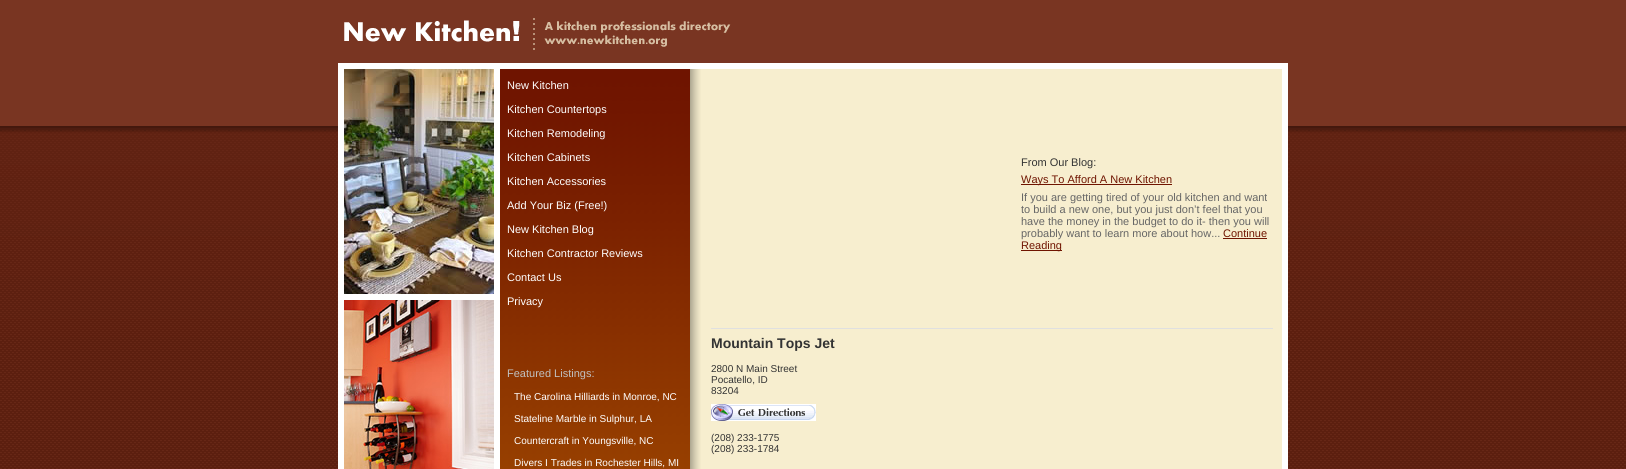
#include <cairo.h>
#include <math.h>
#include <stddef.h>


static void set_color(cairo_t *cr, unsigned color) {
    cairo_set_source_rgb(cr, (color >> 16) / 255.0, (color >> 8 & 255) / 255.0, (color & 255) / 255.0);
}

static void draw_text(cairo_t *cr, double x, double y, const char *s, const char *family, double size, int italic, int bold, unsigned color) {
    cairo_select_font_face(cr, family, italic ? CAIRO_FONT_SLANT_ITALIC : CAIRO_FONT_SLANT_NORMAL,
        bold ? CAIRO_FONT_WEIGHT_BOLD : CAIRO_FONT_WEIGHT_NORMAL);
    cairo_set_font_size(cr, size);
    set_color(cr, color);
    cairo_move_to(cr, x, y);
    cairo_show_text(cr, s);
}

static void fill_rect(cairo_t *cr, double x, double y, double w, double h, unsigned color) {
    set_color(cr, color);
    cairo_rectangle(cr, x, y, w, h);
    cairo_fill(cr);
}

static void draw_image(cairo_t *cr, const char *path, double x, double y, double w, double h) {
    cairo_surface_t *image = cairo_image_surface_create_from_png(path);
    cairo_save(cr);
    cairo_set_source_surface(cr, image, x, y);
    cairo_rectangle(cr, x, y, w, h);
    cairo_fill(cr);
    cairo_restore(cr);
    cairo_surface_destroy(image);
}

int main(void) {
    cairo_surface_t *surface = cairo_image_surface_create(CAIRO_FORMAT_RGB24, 1626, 469);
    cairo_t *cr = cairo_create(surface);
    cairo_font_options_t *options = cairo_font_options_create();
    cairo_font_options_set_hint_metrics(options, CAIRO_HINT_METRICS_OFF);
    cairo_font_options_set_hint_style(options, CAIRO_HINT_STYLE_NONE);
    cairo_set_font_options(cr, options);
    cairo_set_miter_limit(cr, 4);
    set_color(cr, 0x793522);
    cairo_paint(cr);
    draw_image(cr, "assets/img1.png", 0, 126, 1626, 343);
    draw_image(cr, "assets/img2.png", 344, 18, 387, 32);
    fill_rect(cr, 338, 63, 950, 406, 0xFFFFFF);
    draw_image(cr, "assets/img3.png", 344, 69, 150, 225);
    draw_image(cr, "assets/img4.png", 344, 300, 150, 169);
    draw_image(cr, "assets/img5.png", 500, 69, 190, 400);
    draw_text(cr, 507, 89, "New Kitchen", "Liberation Sans", 11, 0, 0, 0xFFFFFF);
    draw_text(cr, 507, 113, "Kitchen Countertops", "Liberation Sans", 11, 0, 0, 0xFFFFFF);
    draw_text(cr, 507, 137, "Kitchen Remodeling", "Liberation Sans", 11, 0, 0, 0xFFFFFF);
    draw_text(cr, 507, 161, "Kitchen Cabinets", "Liberation Sans", 11, 0, 0, 0xFFFFFF);
    draw_text(cr, 507, 185, "Kitchen Accessories", "Liberation Sans", 11, 0, 0, 0xFFFFFF);
    draw_text(cr, 507, 209, "Add Your Biz (Free!)", "Liberation Sans", 11, 0, 0, 0xFFFFFF);
    draw_text(cr, 507, 233, "New Kitchen Blog", "Liberation Sans", 11, 0, 0, 0xFFFFFF);
    draw_text(cr, 507, 257, "Kitchen Contractor Reviews", "Liberation Sans", 11, 0, 0, 0xFFFFFF);
    draw_text(cr, 507, 281, "Contact Us", "Liberation Sans", 11, 0, 0, 0xFFFFFF);
    draw_text(cr, 507, 305, "Privacy", "Liberation Sans", 11, 0, 0, 0xFFFFFF);
    draw_text(cr, 507, 377, "Featured Listings:", "Liberation Sans", 11, 0, 0, 0xC0C0C0);
    draw_text(cr, 514, 400, "The Carolina Hilliards in Monroe, NC", "Liberation Sans", 10, 0, 0, 0xFFFFFF);
    draw_text(cr, 514, 422, "Stateline Marble in Sulphur, LA", "Liberation Sans", 10, 0, 0, 0xFFFFFF);
    draw_text(cr, 514, 444, "Countercraft in Youngsville, NC", "Liberation Sans", 10, 0, 0, 0xFFFFFF);
    draw_text(cr, 514, 466, "Divers I Trades in Rochester Hills, MI", "Liberation Sans", 10, 0, 0, 0xFFFFFF);
    draw_image(cr, "assets/img6.png", 690, 69, 12, 400);
    fill_rect(cr, 702, 69, 580, 400, 0xF7EECF);
    fill_rect(cr, 711, 328, 562, 1, 0xE0E0E0);
    draw_text(cr, 1021, 166, "From Our Blog:", "Liberation Sans", 11, 0, 0, 0x333333);
    fill_rect(cr, 1021, 184, 151, 1, 0x6F1400);
    draw_text(cr, 1021, 183, "Ways To Afford A New Kitchen", "Liberation Sans", 11, 0, 0, 0x6F1400);
    draw_text(cr, 1021, 201, "If you are getting tired of your old kitchen and want", "Liberation Sans", 11, 0, 0, 0x666666);
    draw_text(cr, 1021, 213, "to build a new one, but you just don’t feel that you", "Liberation Sans", 11, 0, 0, 0x666666);
    draw_text(cr, 1021, 225, "have the money in the budget to do it- then you will", "Liberation Sans", 11, 0, 0, 0x666666);
    draw_text(cr, 1021, 237, "probably want to learn more about how...", "Liberation Sans", 11, 0, 0, 0x666666);
    draw_text(cr, 1223, 237, "Continue", "Liberation Sans", 11, 0, 0, 0x6F1400);
    fill_rect(cr, 1223, 238, 44, 1, 0x6F1400);
    fill_rect(cr, 1021, 250, 41, 1, 0x6F1400);
    draw_text(cr, 1021, 249, "Reading", "Liberation Sans", 11, 0, 0, 0x6F1400);
    draw_text(cr, 711, 348, "Mountain Tops Jet", "Liberation Sans", 14, 0, 1, 0x333333);
    draw_text(cr, 711, 372, "2800 N Main Street", "Liberation Sans", 10, 0, 0, 0x333333);
    draw_text(cr, 711, 383, "Pocatello, ID", "Liberation Sans", 10, 0, 0, 0x333333);
    draw_text(cr, 711, 394, "83204", "Liberation Sans", 10, 0, 0, 0x333333);
    draw_image(cr, "assets/img7.png", 711, 404, 105, 17);
    draw_text(cr, 711, 441, "(208) 233-1775", "Liberation Sans", 10, 0, 0, 0x333333);
    draw_text(cr, 711, 452, "(208) 233-1784", "Liberation Sans", 10, 0, 0, 0x333333);
    cairo_surface_write_to_png(surface, "output.png");
    cairo_font_options_destroy(options);
    cairo_destroy(cr);
    cairo_surface_destroy(surface);
    return 0;
}
